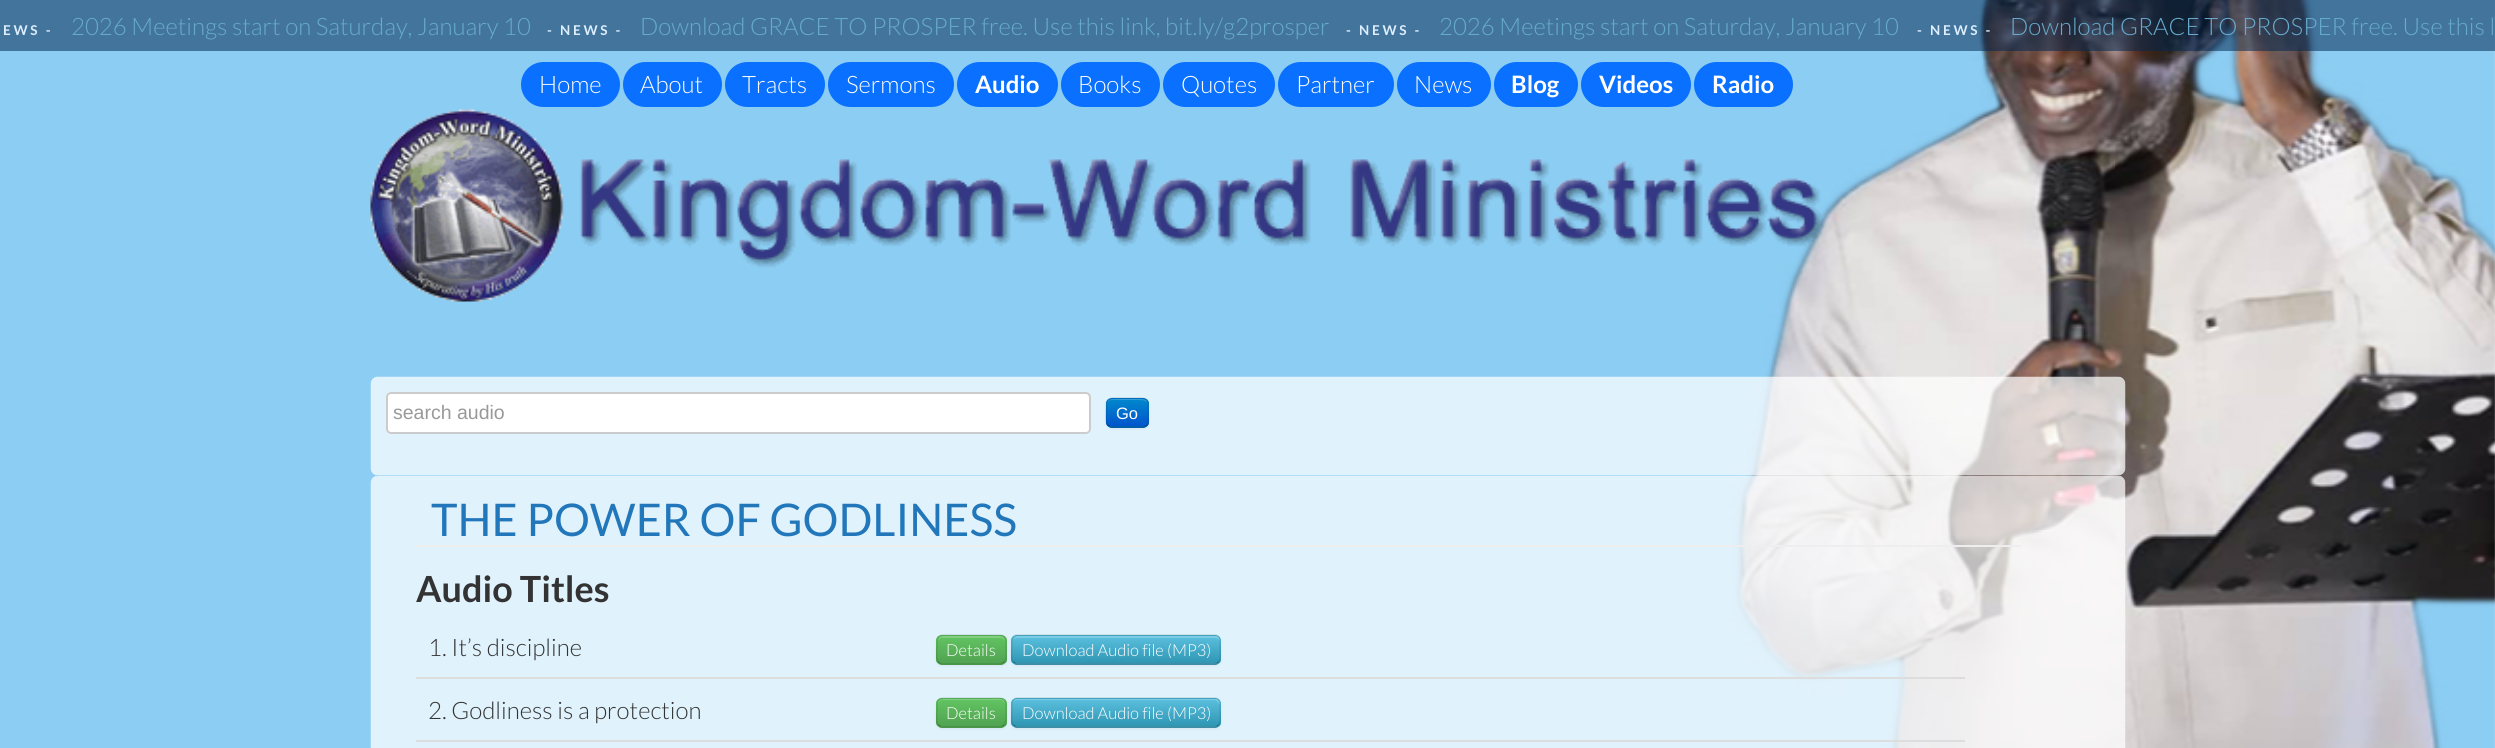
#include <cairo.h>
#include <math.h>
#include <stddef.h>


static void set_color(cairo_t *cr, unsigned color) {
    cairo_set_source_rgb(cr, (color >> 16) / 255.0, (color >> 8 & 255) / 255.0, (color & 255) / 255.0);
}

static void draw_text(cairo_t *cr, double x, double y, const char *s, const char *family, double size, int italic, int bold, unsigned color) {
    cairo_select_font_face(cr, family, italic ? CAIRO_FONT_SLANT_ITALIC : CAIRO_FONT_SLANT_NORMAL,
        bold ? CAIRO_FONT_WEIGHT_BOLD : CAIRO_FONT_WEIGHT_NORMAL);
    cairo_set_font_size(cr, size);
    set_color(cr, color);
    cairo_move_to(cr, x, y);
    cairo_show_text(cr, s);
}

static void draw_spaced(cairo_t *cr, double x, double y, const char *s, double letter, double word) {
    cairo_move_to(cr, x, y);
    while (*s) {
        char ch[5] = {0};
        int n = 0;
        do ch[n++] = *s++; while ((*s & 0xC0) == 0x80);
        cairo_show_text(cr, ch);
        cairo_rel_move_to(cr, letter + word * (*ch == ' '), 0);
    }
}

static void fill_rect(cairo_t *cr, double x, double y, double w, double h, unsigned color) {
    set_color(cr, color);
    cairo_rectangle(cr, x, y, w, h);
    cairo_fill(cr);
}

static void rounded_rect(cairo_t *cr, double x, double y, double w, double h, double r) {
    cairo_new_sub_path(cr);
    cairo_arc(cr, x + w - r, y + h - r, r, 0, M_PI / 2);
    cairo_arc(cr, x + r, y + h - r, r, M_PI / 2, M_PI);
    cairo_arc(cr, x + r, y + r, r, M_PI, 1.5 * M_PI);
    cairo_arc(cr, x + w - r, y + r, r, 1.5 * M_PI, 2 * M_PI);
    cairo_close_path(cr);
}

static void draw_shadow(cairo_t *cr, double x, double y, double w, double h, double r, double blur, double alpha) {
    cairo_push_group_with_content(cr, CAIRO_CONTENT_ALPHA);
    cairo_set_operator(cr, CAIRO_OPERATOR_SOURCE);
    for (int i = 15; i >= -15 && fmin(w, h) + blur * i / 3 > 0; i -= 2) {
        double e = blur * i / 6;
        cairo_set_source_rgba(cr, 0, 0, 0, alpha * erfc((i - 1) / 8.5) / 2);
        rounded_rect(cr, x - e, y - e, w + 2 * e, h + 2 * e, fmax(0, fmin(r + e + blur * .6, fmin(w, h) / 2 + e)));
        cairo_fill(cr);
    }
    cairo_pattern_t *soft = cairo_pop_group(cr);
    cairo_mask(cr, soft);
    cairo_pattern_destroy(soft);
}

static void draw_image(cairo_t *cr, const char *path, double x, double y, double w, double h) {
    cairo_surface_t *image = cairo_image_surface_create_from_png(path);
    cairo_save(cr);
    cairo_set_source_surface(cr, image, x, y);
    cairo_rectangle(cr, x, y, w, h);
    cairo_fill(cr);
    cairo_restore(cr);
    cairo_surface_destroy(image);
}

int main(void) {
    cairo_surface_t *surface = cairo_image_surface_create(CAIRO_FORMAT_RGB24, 2495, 748);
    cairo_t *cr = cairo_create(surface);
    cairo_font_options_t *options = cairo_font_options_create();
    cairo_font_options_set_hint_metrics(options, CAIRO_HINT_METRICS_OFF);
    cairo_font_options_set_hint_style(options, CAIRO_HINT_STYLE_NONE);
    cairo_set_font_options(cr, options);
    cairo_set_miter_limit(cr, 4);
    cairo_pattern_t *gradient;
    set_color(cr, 0xFFFFFF);
    cairo_paint(cr);
    draw_image(cr, "assets/img1.png", 0, 0, 2495, 748);
    cairo_set_source_rgba(cr, 0, 0.153, 0.31, 0.53);
    cairo_rectangle(cr, 0, 0, 2495, 51);
    cairo_fill(cr);
    cairo_select_font_face(cr, "Lato", CAIRO_FONT_SLANT_NORMAL, CAIRO_FONT_WEIGHT_BOLD);
    cairo_set_font_size(cr, 13.5);
    set_color(cr, 0xDDEEFF);
    draw_spaced(cr, 3, 35, "EWS -", 2.75, 0);
    draw_text(cr, 71, 35, "2026 Meetings start on Saturday, January 10", "Lato Light", 24, 0, 0, 0x66AACC);
    cairo_select_font_face(cr, "Lato", CAIRO_FONT_SLANT_NORMAL, CAIRO_FONT_WEIGHT_BOLD);
    cairo_set_font_size(cr, 13.5);
    set_color(cr, 0xDDEEFF);
    draw_spaced(cr, 547, 35, "- NEWS -", 2.75, 0);
    draw_text(cr, 640, 35, "Download GRACE TO PROSPER free. Use this link, bit.ly/g2prosper", "Lato Light", 24, 0, 0, 0x66AACC);
    cairo_select_font_face(cr, "Lato", CAIRO_FONT_SLANT_NORMAL, CAIRO_FONT_WEIGHT_BOLD);
    cairo_set_font_size(cr, 13.5);
    set_color(cr, 0xDDEEFF);
    draw_spaced(cr, 1346, 35, "- NEWS -", 2.75, 0);
    draw_text(cr, 1439, 35, "2026 Meetings start on Saturday, January 10", "Lato Light", 24, 0, 0, 0x66AACC);
    cairo_select_font_face(cr, "Lato", CAIRO_FONT_SLANT_NORMAL, CAIRO_FONT_WEIGHT_BOLD);
    cairo_set_font_size(cr, 13.5);
    set_color(cr, 0xDDEEFF);
    draw_spaced(cr, 1917, 35, "- NEWS -", 2.75, 0);
    draw_text(cr, 2010, 35, "Download GRACE TO PROSPER free. Use this l", "Lato Light", 24, 0, 0, 0x66AACC);
    set_color(cr, 0x0A70FF);
    rounded_rect(cr, 521, 62, 99, 45, 22.5);
    cairo_fill(cr);
    draw_text(cr, 539, 93, "Home", "Lato Light", 24, 0, 0, 0xFFFFFF);
    set_color(cr, 0x0A70FF);
    rounded_rect(cr, 623, 62, 99, 45, 22.5);
    cairo_fill(cr);
    draw_text(cr, 640, 93, "About", "Lato Light", 24, 0, 0, 0xFFFFFF);
    set_color(cr, 0x0A70FF);
    rounded_rect(cr, 725, 62, 100, 45, 22.5);
    cairo_fill(cr);
    draw_text(cr, 742, 93, "Tracts", "Lato Light", 24, 0, 0, 0xFFFFFF);
    set_color(cr, 0x0A70FF);
    rounded_rect(cr, 828, 62, 126, 45, 22.5);
    cairo_fill(cr);
    draw_text(cr, 846, 93, "Sermons", "Lato Light", 24, 0, 0, 0xFFFFFF);
    set_color(cr, 0x0A70FF);
    rounded_rect(cr, 957, 62, 101, 45, 22.5);
    cairo_fill(cr);
    draw_text(cr, 975, 93, "Audio", "Lato", 24, 0, 1, 0xFFFFFF);
    set_color(cr, 0x0A70FF);
    rounded_rect(cr, 1061, 62, 99, 45, 22.5);
    cairo_fill(cr);
    draw_text(cr, 1078, 93, "Books", "Lato Light", 24, 0, 0, 0xFFFFFF);
    set_color(cr, 0x0A70FF);
    rounded_rect(cr, 1163, 62, 112, 45, 22.5);
    cairo_fill(cr);
    draw_text(cr, 1181, 93, "Quotes", "Lato Light", 24, 0, 0, 0xFFFFFF);
    set_color(cr, 0x0A70FF);
    rounded_rect(cr, 1278, 62, 116, 45, 22.5);
    cairo_fill(cr);
    draw_text(cr, 1296, 93, "Partner", "Lato Light", 24, 0, 0, 0xFFFFFF);
    set_color(cr, 0x0A70FF);
    rounded_rect(cr, 1397, 62, 94, 45, 22.5);
    cairo_fill(cr);
    draw_text(cr, 1414, 93, "News", "Lato Light", 24, 0, 0, 0xFFFFFF);
    set_color(cr, 0x0A70FF);
    rounded_rect(cr, 1494, 62, 84, 45, 22.5);
    cairo_fill(cr);
    draw_text(cr, 1511, 93, "Blog", "Lato", 24, 0, 1, 0xFFFFFF);
    set_color(cr, 0x0A70FF);
    rounded_rect(cr, 1581, 62, 110, 45, 22.5);
    cairo_fill(cr);
    draw_text(cr, 1599, 93, "Videos", "Lato", 24, 0, 1, 0xFFFFFF);
    set_color(cr, 0x0A70FF);
    rounded_rect(cr, 1694, 62, 99, 45, 22.5);
    cairo_fill(cr);
    draw_text(cr, 1712, 93, "Radio", "Lato", 24, 0, 1, 0xFFFFFF);
    draw_image(cr, "assets/img2.png", 370, 109, 1454, 193);
    draw_image(cr, "assets/img3.png", 370, 376, 1756, 100);
    rounded_rect(cr, 386, 392, 705, 42, 5);
    cairo_fill(cr);
    set_color(cr, 0xECECEC);
    cairo_new_path(cr);
    cairo_move_to(cr, 390, 394);
    cairo_line_to(cr, 1086, 394);
    cairo_curve_to(cr, 1088, 394, 1089, 396, 1089, 398);
    cairo_line_to(cr, 1089, 396);
    cairo_curve_to(cr, 1089, 394, 1088, 393, 1086, 393);
    cairo_line_to(cr, 390, 393);
    cairo_curve_to(cr, 388, 393, 387, 394, 387, 396);
    cairo_line_to(cr, 387, 398);
    cairo_curve_to(cr, 387, 396, 388, 394, 390, 394);
    cairo_close_path(cr);
    cairo_fill(cr);
    rounded_rect(cr, 387, 393, 703, 40, 4);
    set_color(cr, 0xCCCCCC);
    cairo_stroke(cr);
    draw_text(cr, 393, 419, "search audio", "Liberation Sans", 19.5, 0, 0, 0x999999);
    set_color(cr, 0x000000);
    draw_shadow(cr, 1106, 399, 43, 30, 6, 1.5, 0.05);
    set_color(cr, 0x0074CC);
    rounded_rect(cr, 1106, 398, 43, 30, 6);
    cairo_fill(cr);
    cairo_save(cr);
    rounded_rect(cr, 1106, 398, 43, 30, 6);
    cairo_clip(cr);
    gradient = cairo_pattern_create_linear(1127, 399, 1127, 426);
    cairo_pattern_add_color_stop_rgba(gradient, 0, 0, 0.533, 0.8, 1);
    cairo_pattern_add_color_stop_rgba(gradient, 1, 0, 0.333, 0.8, 1);
    cairo_set_source(cr, gradient);
    cairo_pattern_destroy(gradient);
    cairo_rectangle(cr, 1106, 399, 43, 27);
    cairo_fill(cr);
    cairo_restore(cr);
    cairo_set_source_rgba(cr, 1, 1, 1, 0.2);
    cairo_set_fill_rule(cr, CAIRO_FILL_RULE_EVEN_ODD);
    cairo_new_path(cr);
    cairo_move_to(cr, 1112, 400);
    cairo_line_to(cr, 1138, 400);
    cairo_curve_to(cr, 1145, 400, 1148, 401, 1148, 405);
    cairo_curve_to(cr, 1148, 399, 1143, 399, 1138, 399);
    cairo_line_to(cr, 1117, 399);
    cairo_curve_to(cr, 1112, 399, 1107, 399, 1107, 405);
    cairo_curve_to(cr, 1107, 402, 1109, 400, 1112, 400);
    cairo_close_path(cr);
    cairo_move_to(cr, 1148, 420);
    cairo_line_to(cr, 1148, 423);
    cairo_close_path(cr);
    cairo_fill(cr);
    cairo_new_path(cr);
    cairo_move_to(cr, 1146.5, 425);
    cairo_curve_to(cr, 1145.5, 426, 1144.5, 427, 1143, 427);
    cairo_line_to(cr, 1111.5, 427);
    cairo_curve_to(cr, 1110, 427, 1109, 426, 1108, 425);
    cairo_set_source_rgba(cr, 0, 0, 0, 0.25);
    cairo_set_line_width(cr, 1.5);
    cairo_stroke(cr);
    cairo_new_path(cr);
    cairo_move_to(cr, 1108, 425);
    cairo_curve_to(cr, 1105, 422.5, 1106, 416, 1106, 412.5);
    cairo_line_to(cr, 1106.5, 402.5);
    cairo_curve_to(cr, 1107.5, 397.5, 1113, 398, 1117, 398);
    cairo_line_to(cr, 1138, 398);
    cairo_curve_to(cr, 1141.5, 398, 1147, 397.5, 1148, 402.5);
    cairo_line_to(cr, 1148, 412.5);
    cairo_curve_to(cr, 1148, 416, 1149.5, 422.5, 1146.5, 425);
    cairo_set_source_rgba(cr, 0, 0, 0, 0.1);
    cairo_stroke(cr);
    draw_text(cr, 1116, 419, "Go", "Liberation Sans", 16.5, 0, 0, 0xFFFFFF);
    draw_image(cr, "assets/img4.png", 370, 475, 1756, 273);
    fill_rect(cr, 416, 545, 1605, 2, 0xEEEEEE);
    draw_text(cr, 431, 536, "THE POWER OF GODLINESS", "Lato", 45, 0, 0, 0x2277BB);
    draw_text(cr, 416, 602, "Audio Titles", "Lato", 36, 0, 1, 0x333333);
    fill_rect(cr, 416, 677, 1549, 2, 0xDDDDDD);
    draw_text(cr, 428, 656, "1. It’s discipline", "Lato Light", 24, 0, 0, 0x333333);
    set_color(cr, 0x000000);
    draw_shadow(cr, 936, 636, 71, 30, 6, 1.5, 0.05);
    set_color(cr, 0x5BB75B);
    rounded_rect(cr, 936, 635, 71, 30, 6);
    cairo_fill(cr);
    cairo_save(cr);
    cairo_set_fill_rule(cr, CAIRO_FILL_RULE_WINDING);
    rounded_rect(cr, 936, 635, 71, 30, 6);
    cairo_clip(cr);
    gradient = cairo_pattern_create_linear(971, 636, 971, 663);
    cairo_pattern_add_color_stop_rgba(gradient, 0, 0.384, 0.769, 0.384, 1);
    cairo_pattern_add_color_stop_rgba(gradient, 1, 0.318, 0.639, 0.318, 1);
    cairo_set_source(cr, gradient);
    cairo_pattern_destroy(gradient);
    cairo_rectangle(cr, 936, 636, 71, 27);
    cairo_fill(cr);
    cairo_restore(cr);
    cairo_set_source_rgba(cr, 1, 1, 1, 0.2);
    cairo_set_fill_rule(cr, CAIRO_FILL_RULE_WINDING);
    cairo_new_path(cr);
    cairo_move_to(cr, 942, 638);
    cairo_line_to(cr, 1000, 638);
    cairo_curve_to(cr, 1003, 638, 1005, 640, 1005, 642);
    cairo_curve_to(cr, 1005, 634, 996, 636, 990, 636);
    cairo_line_to(cr, 952, 636);
    cairo_curve_to(cr, 947, 636, 938, 634, 938, 642);
    cairo_curve_to(cr, 938, 640, 940, 638, 942, 638);
    cairo_close_path(cr);
    cairo_fill(cr);
    cairo_new_path(cr);
    cairo_move_to(cr, 1004, 662);
    cairo_curve_to(cr, 1003, 663, 1002, 664, 1000.5, 664);
    cairo_line_to(cr, 942, 664);
    cairo_curve_to(cr, 940.5, 664, 939.5, 663, 938.5, 662);
    cairo_set_source_rgba(cr, 0, 0, 0, 0.25);
    cairo_stroke(cr);
    cairo_new_path(cr);
    cairo_move_to(cr, 938.5, 662);
    cairo_curve_to(cr, 935.5, 659, 937, 650, 937, 646.5);
    cairo_curve_to(cr, 937, 633.5, 938.5, 635, 952, 635);
    cairo_line_to(cr, 991, 635);
    cairo_curve_to(cr, 1006.5, 635, 1006, 634.5, 1006, 649.5);
    cairo_curve_to(cr, 1006, 653, 1007, 659.5, 1004, 662);
    cairo_set_source_rgba(cr, 0, 0, 0, 0.1);
    cairo_stroke(cr);
    draw_text(cr, 946, 656, "Details", "Lato Light", 16.5, 0, 0, 0xFFFFFF);
    set_color(cr, 0x000000);
    draw_shadow(cr, 1011, 636, 210, 30, 6, 1.5, 0.05);
    set_color(cr, 0x49AFCD);
    rounded_rect(cr, 1011, 635, 210, 30, 6);
    cairo_fill(cr);
    cairo_save(cr);
    rounded_rect(cr, 1011, 635, 210, 30, 6);
    cairo_clip(cr);
    gradient = cairo_pattern_create_linear(1116, 636, 1116, 663);
    cairo_pattern_add_color_stop_rgba(gradient, 0, 0.357, 0.753, 0.871, 1);
    cairo_pattern_add_color_stop_rgba(gradient, 1, 0.184, 0.588, 0.706, 1);
    cairo_set_source(cr, gradient);
    cairo_pattern_destroy(gradient);
    cairo_rectangle(cr, 1011, 636, 210, 27);
    cairo_fill(cr);
    cairo_restore(cr);
    cairo_set_source_rgba(cr, 1, 1, 1, 0.2);
    cairo_new_path(cr);
    cairo_move_to(cr, 1017, 638);
    cairo_line_to(cr, 1215, 638);
    cairo_curve_to(cr, 1217, 638, 1220, 640, 1220, 642);
    cairo_line_to(cr, 1220, 641);
    cairo_curve_to(cr, 1220, 638, 1218, 636, 1215, 636);
    cairo_line_to(cr, 1018, 636);
    cairo_curve_to(cr, 1016, 636, 1014, 638, 1013, 640);
    cairo_curve_to(cr, 1014, 639, 1016, 638, 1017, 638);
    cairo_close_path(cr);
    cairo_fill(cr);
    cairo_new_path(cr);
    cairo_move_to(cr, 1218.5, 662);
    cairo_curve_to(cr, 1217.5, 663, 1216.5, 664, 1215, 664);
    cairo_line_to(cr, 1017, 664);
    cairo_curve_to(cr, 1015.5, 664, 1014.5, 663, 1013.5, 662);
    cairo_set_source_rgba(cr, 0, 0, 0, 0.25);
    cairo_stroke(cr);
    cairo_new_path(cr);
    cairo_move_to(cr, 1013.5, 662);
    cairo_curve_to(cr, 1010.5, 659, 1012, 650, 1012, 646.5);
    cairo_curve_to(cr, 1012, 642.5, 1011, 635.5, 1017, 635);
    cairo_line_to(cr, 1215, 635);
    cairo_curve_to(cr, 1221, 635.5, 1220, 642.5, 1220, 646.5);
    cairo_curve_to(cr, 1220, 650, 1221.5, 659, 1218.5, 662);
    cairo_set_source_rgba(cr, 0, 0, 0, 0.1);
    cairo_stroke(cr);
    draw_text(cr, 1022, 656, "Download Audio file (MP3)", "Lato Light", 16.5, 0, 0, 0xFFFFFF);
    fill_rect(cr, 416, 740, 1549, 2, 0xDDDDDD);
    draw_text(cr, 428, 719, "2. Godliness is a protection", "Lato Light", 24, 0, 0, 0x333333);
    set_color(cr, 0x000000);
    draw_shadow(cr, 936, 699, 71, 30, 6, 1.5, 0.05);
    set_color(cr, 0x5BB75B);
    rounded_rect(cr, 936, 698, 71, 30, 6);
    cairo_fill(cr);
    cairo_save(cr);
    rounded_rect(cr, 936, 698, 71, 30, 6);
    cairo_clip(cr);
    gradient = cairo_pattern_create_linear(971, 699, 971, 726);
    cairo_pattern_add_color_stop_rgba(gradient, 0, 0.384, 0.769, 0.384, 1);
    cairo_pattern_add_color_stop_rgba(gradient, 1, 0.318, 0.639, 0.318, 1);
    cairo_set_source(cr, gradient);
    cairo_pattern_destroy(gradient);
    cairo_rectangle(cr, 936, 699, 71, 27);
    cairo_fill(cr);
    cairo_restore(cr);
    set_color(cr, 0x81CF81);
    cairo_new_path(cr);
    cairo_move_to(cr, 942, 700);
    cairo_line_to(cr, 1000, 700);
    cairo_curve_to(cr, 1003, 700, 1005, 703, 1005, 705);
    cairo_curve_to(cr, 1005, 697, 996, 699, 990, 699);
    cairo_line_to(cr, 952, 699);
    cairo_curve_to(cr, 947, 699, 938, 697, 938, 705);
    cairo_curve_to(cr, 938, 703, 940, 700, 942, 700);
    cairo_close_path(cr);
    cairo_fill(cr);
    cairo_new_path(cr);
    cairo_move_to(cr, 1004, 725);
    cairo_curve_to(cr, 1003, 726, 1002, 727, 1000.5, 727);
    cairo_line_to(cr, 942, 727);
    cairo_curve_to(cr, 940.5, 727, 939.5, 726, 938.5, 725);
    cairo_set_source_rgba(cr, 0, 0, 0, 0.25);
    cairo_stroke(cr);
    cairo_new_path(cr);
    cairo_move_to(cr, 938.5, 725);
    cairo_curve_to(cr, 935.5, 722.5, 937, 716, 937, 712.5);
    cairo_curve_to(cr, 937, 697.5, 936, 698, 952, 698);
    cairo_line_to(cr, 991, 698);
    cairo_curve_to(cr, 1004, 698, 1006, 696.5, 1006, 709.5);
    cairo_curve_to(cr, 1006, 713, 1007, 722, 1004, 725);
    cairo_set_source_rgba(cr, 0, 0, 0, 0.1);
    cairo_stroke(cr);
    draw_text(cr, 946, 719, "Details", "Lato Light", 16.5, 0, 0, 0xFFFFFF);
    set_color(cr, 0x000000);
    draw_shadow(cr, 1011, 699, 210, 30, 6, 1.5, 0.05);
    set_color(cr, 0x49AFCD);
    rounded_rect(cr, 1011, 698, 210, 30, 6);
    cairo_fill(cr);
    cairo_save(cr);
    rounded_rect(cr, 1011, 698, 210, 30, 6);
    cairo_clip(cr);
    gradient = cairo_pattern_create_linear(1116, 699, 1116, 726);
    cairo_pattern_add_color_stop_rgba(gradient, 0, 0.357, 0.753, 0.871, 1);
    cairo_pattern_add_color_stop_rgba(gradient, 1, 0.184, 0.588, 0.706, 1);
    cairo_set_source(cr, gradient);
    cairo_pattern_destroy(gradient);
    cairo_rectangle(cr, 1011, 699, 210, 27);
    cairo_fill(cr);
    cairo_restore(cr);
    cairo_set_source_rgba(cr, 1, 1, 1, 0.2);
    cairo_new_path(cr);
    cairo_move_to(cr, 1017, 700);
    cairo_line_to(cr, 1215, 700);
    cairo_line_to(cr, 1218, 702);
    cairo_line_to(cr, 1220, 705);
    cairo_line_to(cr, 1220, 704);
    cairo_curve_to(cr, 1220, 701, 1218, 699, 1215, 699);
    cairo_line_to(cr, 1018, 699);
    cairo_curve_to(cr, 1016, 699, 1014, 700, 1013, 702);
    cairo_curve_to(cr, 1014, 701, 1016, 700, 1017, 700);
    cairo_close_path(cr);
    cairo_fill(cr);
    cairo_new_path(cr);
    cairo_move_to(cr, 1218.5, 725);
    cairo_curve_to(cr, 1217.5, 726, 1216.5, 727, 1215, 727);
    cairo_line_to(cr, 1017, 727);
    cairo_curve_to(cr, 1015.5, 727, 1014.5, 726, 1013.5, 725);
    cairo_set_source_rgba(cr, 0, 0, 0, 0.25);
    cairo_stroke(cr);
    cairo_new_path(cr);
    cairo_move_to(cr, 1013.5, 725);
    cairo_curve_to(cr, 1010.5, 722, 1012, 713, 1012, 709.5);
    cairo_curve_to(cr, 1012, 705.5, 1011, 698.5, 1017, 698);
    cairo_line_to(cr, 1215, 698);
    cairo_curve_to(cr, 1221, 698.5, 1220, 705.5, 1220, 709.5);
    cairo_curve_to(cr, 1220, 713, 1221.5, 722, 1218.5, 725);
    cairo_set_source_rgba(cr, 0, 0, 0, 0.1);
    cairo_stroke(cr);
    draw_text(cr, 1022, 719, "Download Audio file (MP3)", "Lato Light", 16.5, 0, 0, 0xFFFFFF);
    cairo_surface_write_to_png(surface, "output.png");
    cairo_font_options_destroy(options);
    cairo_destroy(cr);
    cairo_surface_destroy(surface);
    return 0;
}
